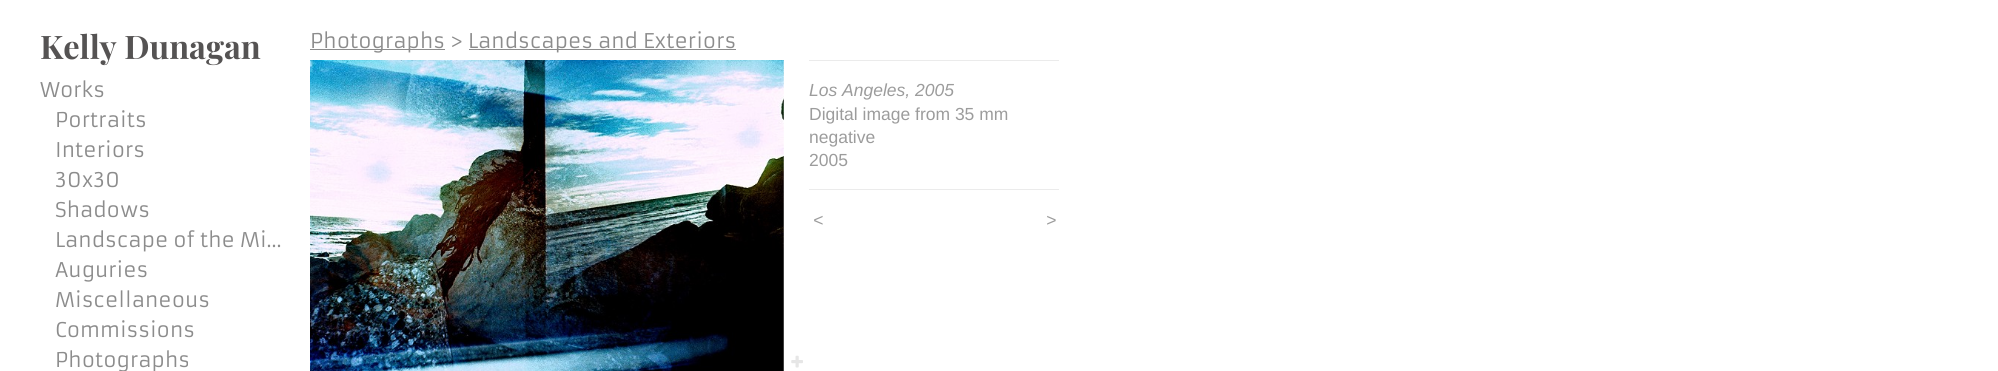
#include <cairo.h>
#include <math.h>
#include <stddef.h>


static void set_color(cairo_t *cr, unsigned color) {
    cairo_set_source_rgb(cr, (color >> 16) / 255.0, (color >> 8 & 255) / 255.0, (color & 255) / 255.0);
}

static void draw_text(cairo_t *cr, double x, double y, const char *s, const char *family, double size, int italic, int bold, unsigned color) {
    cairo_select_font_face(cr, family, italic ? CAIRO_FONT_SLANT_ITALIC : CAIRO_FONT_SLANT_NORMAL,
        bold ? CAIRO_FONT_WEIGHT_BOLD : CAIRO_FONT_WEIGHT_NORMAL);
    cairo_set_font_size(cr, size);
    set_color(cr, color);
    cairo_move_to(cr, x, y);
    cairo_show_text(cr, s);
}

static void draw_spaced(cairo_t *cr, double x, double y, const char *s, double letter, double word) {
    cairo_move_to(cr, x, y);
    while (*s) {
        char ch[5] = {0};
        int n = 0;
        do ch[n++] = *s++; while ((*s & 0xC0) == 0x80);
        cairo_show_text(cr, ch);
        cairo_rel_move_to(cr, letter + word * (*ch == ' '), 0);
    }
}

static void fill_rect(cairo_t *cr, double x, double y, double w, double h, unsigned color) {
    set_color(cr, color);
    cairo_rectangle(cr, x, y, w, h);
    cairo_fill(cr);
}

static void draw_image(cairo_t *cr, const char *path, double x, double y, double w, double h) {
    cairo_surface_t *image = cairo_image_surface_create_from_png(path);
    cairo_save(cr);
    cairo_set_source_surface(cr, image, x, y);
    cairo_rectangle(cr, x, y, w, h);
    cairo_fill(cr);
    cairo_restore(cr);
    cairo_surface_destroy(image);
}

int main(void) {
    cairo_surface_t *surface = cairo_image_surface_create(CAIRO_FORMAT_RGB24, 1998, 371);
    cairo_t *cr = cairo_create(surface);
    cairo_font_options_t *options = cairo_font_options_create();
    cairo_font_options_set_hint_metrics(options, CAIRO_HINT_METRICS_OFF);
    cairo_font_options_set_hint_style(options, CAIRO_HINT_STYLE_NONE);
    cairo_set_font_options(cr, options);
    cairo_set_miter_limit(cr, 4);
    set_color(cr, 0xFFFFFF);
    cairo_paint(cr);
    draw_text(cr, 40, 59, "Kelly Dunagan", "Playfair Display", 32.5, 0, 1, 0x555353);
    draw_text(cr, 40, 97, "Works", "Armata", 20, 0, 0, 0x8C8C8C);
    draw_text(cr, 55, 127, "Portraits", "Armata", 20, 0, 0, 0x8C8C8C);
    draw_text(cr, 55, 157, "Interiors", "Armata", 20, 0, 0, 0x8C8C8C);
    draw_text(cr, 55, 187, "30x30", "Armata", 20, 0, 0, 0x8C8C8C);
    draw_text(cr, 55, 217, "Shadows", "Armata", 20, 0, 0, 0x8C8C8C);
    draw_text(cr, 55, 247, "Landscape of the Mi…", "Armata", 20, 0, 0, 0x8C8C8C);
    draw_text(cr, 55, 277, "Auguries", "Armata", 20, 0, 0, 0x8C8C8C);
    draw_text(cr, 55, 307, "Miscellaneous", "Armata", 20, 0, 0, 0x8C8C8C);
    draw_text(cr, 55, 337, "Commissions", "Armata", 20, 0, 0, 0x8C8C8C);
    draw_text(cr, 55, 367, "Photographs", "Armata", 20, 0, 0, 0x8C8C8C);
    fill_rect(cr, 310, 49, 135, 1, 0x8C8C8C);
    draw_text(cr, 310, 48, "Photographs >", "Armata", 20, 0, 0, 0x8C8C8C);
    fill_rect(cr, 469, 49, 267, 1, 0x8C8C8C);
    draw_text(cr, 468, 48, "Landscapes and Exteriors", "Armata", 20, 0, 0, 0x8C8C8C);
    draw_image(cr, "assets/img1.png", 310, 60, 474, 311);
    draw_image(cr, "assets/img2.png", 791, 355, 12, 13);
    fill_rect(cr, 809, 60, 250, 1, 0xEBEBEB);
    draw_text(cr, 809, 96, "Los Angeles, 2005", "Liberation Sans", 17.5, 1, 0, 0x9C9C9C);
    draw_text(cr, 809, 120, "Digital image from 35 mm", "Liberation Sans", 17.5, 0, 0, 0x9C9C9C);
    draw_text(cr, 809, 143, "negative", "Liberation Sans", 17.5, 0, 0, 0x9C9C9C);
    draw_text(cr, 809, 166, "2005", "Liberation Sans", 17.5, 0, 0, 0x9C9C9C);
    fill_rect(cr, 809, 189, 250, 1, 0xEBEBEB);
    cairo_select_font_face(cr, "Liberation Sans", CAIRO_FONT_SLANT_ITALIC, CAIRO_FONT_WEIGHT_NORMAL);
    set_color(cr, 0x9C9C9C);
    draw_spaced(cr, 813, 226, "<", 1, 0);
    draw_spaced(cr, 1046, 226, ">", 1, 0);
    cairo_surface_write_to_png(surface, "output.png");
    cairo_font_options_destroy(options);
    cairo_destroy(cr);
    cairo_surface_destroy(surface);
    return 0;
}
